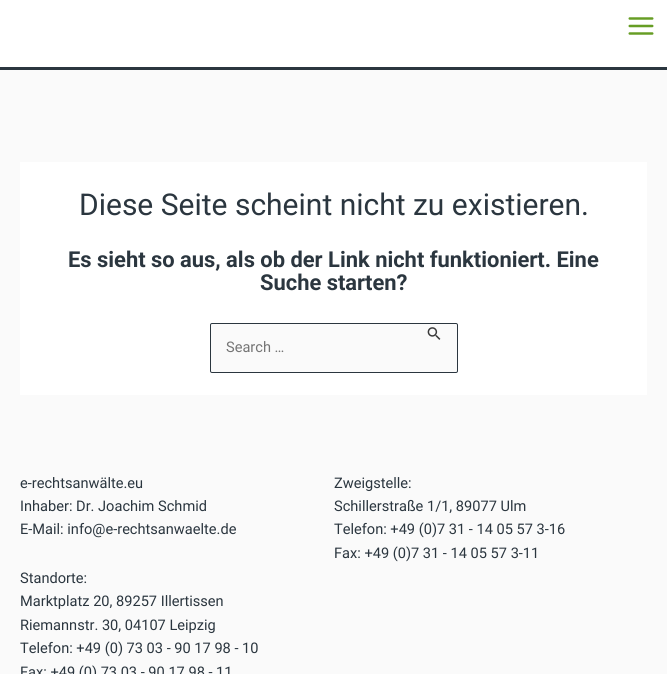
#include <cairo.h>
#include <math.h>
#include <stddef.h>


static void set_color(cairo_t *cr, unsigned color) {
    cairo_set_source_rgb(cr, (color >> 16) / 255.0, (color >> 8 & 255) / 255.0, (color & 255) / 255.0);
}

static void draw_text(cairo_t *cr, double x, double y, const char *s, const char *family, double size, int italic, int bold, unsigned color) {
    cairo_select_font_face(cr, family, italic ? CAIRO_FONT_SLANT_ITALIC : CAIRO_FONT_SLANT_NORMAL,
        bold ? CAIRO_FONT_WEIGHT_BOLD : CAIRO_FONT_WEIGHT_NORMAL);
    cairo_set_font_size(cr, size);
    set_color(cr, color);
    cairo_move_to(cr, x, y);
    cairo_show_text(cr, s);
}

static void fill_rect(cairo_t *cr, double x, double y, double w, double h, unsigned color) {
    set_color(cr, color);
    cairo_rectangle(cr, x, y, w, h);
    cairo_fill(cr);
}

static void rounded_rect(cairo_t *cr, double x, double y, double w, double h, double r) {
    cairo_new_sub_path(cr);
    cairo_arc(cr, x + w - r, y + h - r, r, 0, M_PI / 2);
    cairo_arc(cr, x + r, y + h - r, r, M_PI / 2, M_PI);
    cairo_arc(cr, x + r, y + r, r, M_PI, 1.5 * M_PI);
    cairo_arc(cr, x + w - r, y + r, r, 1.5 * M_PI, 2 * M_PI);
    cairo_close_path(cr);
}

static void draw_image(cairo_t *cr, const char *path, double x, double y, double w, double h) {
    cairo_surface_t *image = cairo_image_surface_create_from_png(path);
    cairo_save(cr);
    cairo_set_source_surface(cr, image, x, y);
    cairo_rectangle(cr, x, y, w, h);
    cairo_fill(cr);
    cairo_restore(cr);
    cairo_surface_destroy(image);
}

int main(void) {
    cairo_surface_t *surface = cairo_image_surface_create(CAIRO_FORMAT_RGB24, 667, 674);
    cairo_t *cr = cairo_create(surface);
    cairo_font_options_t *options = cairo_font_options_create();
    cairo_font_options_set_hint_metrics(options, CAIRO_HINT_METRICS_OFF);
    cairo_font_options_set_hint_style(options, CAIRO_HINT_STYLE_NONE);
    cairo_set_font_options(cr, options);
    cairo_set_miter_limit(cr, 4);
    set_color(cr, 0xFAFAFA);
    cairo_paint(cr);
    fill_rect(cr, 0, 0, 667, 67, 0xFFFFFF);
    fill_rect(cr, 0, 67, 667, 3, 0x2B363F);
    draw_image(cr, "assets/img1.png", 628, 17, 26, 18);
    fill_rect(cr, 20, 162, 627, 233, 0xFFFFFF);
    draw_text(cr, 79, 215, "Diese Seite scheint nicht zu existieren.", "Roboto", 30, 0, 0, 0x2B363F);
    draw_text(cr, 68, 267, "Es sieht so aus, als ob der Link nicht funktioniert. Eine", "Roboto", 21.9, 0, 1, 0x2B363F);
    draw_text(cr, 260, 290, "Suche starten?", "Roboto", 21.9, 0, 1, 0x2B363F);
    set_color(cr, 0xFAFAFA);
    rounded_rect(cr, 210.5, 323.5, 247, 49, 1.5);
    cairo_fill_preserve(cr);
    set_color(cr, 0x2B363F);
    cairo_set_line_width(cr, 1);
    cairo_stroke(cr);
    draw_image(cr, "assets/img2.png", 427, 327, 14, 13);
    draw_text(cr, 226, 352, "Search …", "Roboto", 14.6, 0, 0, 0x757575);
    draw_text(cr, 20, 488, "e-rechtsanwälte.eu", "Roboto", 14.6, 0, 0, 0x2B363F);
    draw_text(cr, 20, 511, "Inhaber: Dr. Joachim Schmid", "Roboto", 14.6, 0, 0, 0x2B363F);
    draw_text(cr, 20, 534, "E-Mail: info@e-rechtsanwaelte.de", "Roboto", 14.6, 0, 0, 0x2B363F);
    draw_text(cr, 20, 583, "Standorte:", "Roboto", 14.6, 0, 0, 0x2B363F);
    draw_text(cr, 20, 606, "Marktplatz 20, 89257 Illertissen", "Roboto", 14.6, 0, 0, 0x2B363F);
    draw_text(cr, 20, 630, "Riemannstr. 30, 04107 Leipzig", "Roboto", 14.6, 0, 0, 0x2B363F);
    draw_text(cr, 20, 653, "Telefon: +49 (0) 73 03 - 90 17 98 - 10", "Roboto", 14.6, 0, 0, 0x2B363F);
    draw_text(cr, 20, 677, "Fax: +49 (0) 73 03 - 90 17 98 - 11", "Roboto", 14.6, 0, 0, 0x2B363F);
    draw_text(cr, 334, 488, "Zweigstelle:", "Roboto", 14.6, 0, 0, 0x2B363F);
    draw_text(cr, 334, 511, "Schillerstraße 1/1, 89077 Ulm", "Roboto", 14.6, 0, 0, 0x2B363F);
    draw_text(cr, 334, 534, "Telefon: +49 (0)7 31 - 14 05 57 3-16", "Roboto", 14.6, 0, 0, 0x2B363F);
    draw_text(cr, 334, 558, "Fax: +49 (0)7 31 - 14 05 57 3-11", "Roboto", 14.6, 0, 0, 0x2B363F);
    cairo_surface_write_to_png(surface, "output.png");
    cairo_font_options_destroy(options);
    cairo_destroy(cr);
    cairo_surface_destroy(surface);
    return 0;
}
